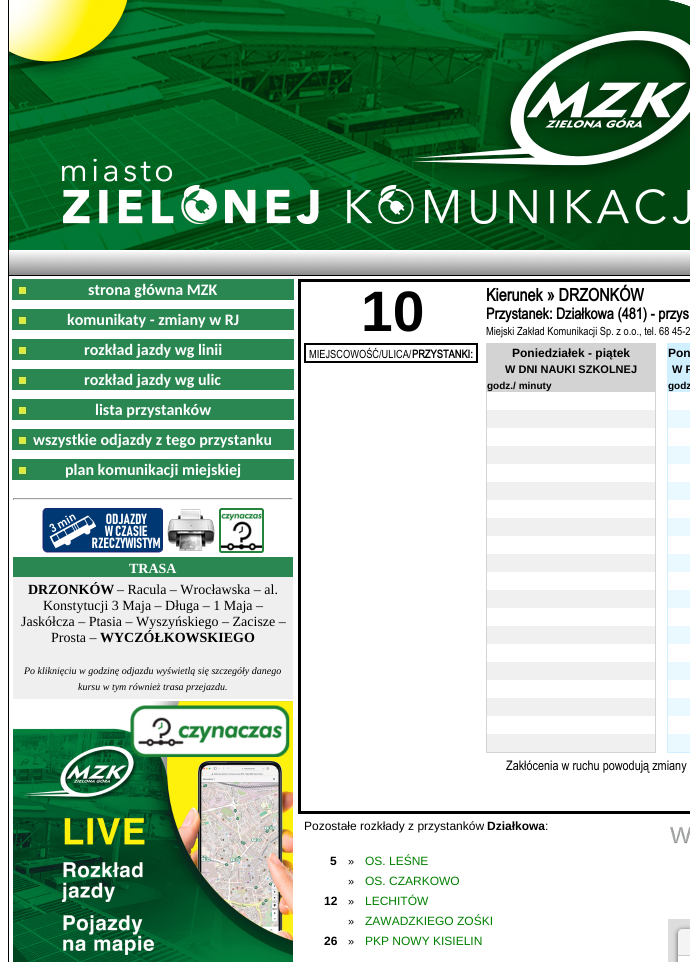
#include <cairo.h>
#include <math.h>
#include <stddef.h>


static void set_color(cairo_t *cr, unsigned color) {
    cairo_set_source_rgb(cr, (color >> 16) / 255.0, (color >> 8 & 255) / 255.0, (color & 255) / 255.0);
}

static void draw_text(cairo_t *cr, double x, double y, const char *s, const char *family, double size, int italic, int bold, unsigned color) {
    cairo_select_font_face(cr, family, italic ? CAIRO_FONT_SLANT_ITALIC : CAIRO_FONT_SLANT_NORMAL,
        bold ? CAIRO_FONT_WEIGHT_BOLD : CAIRO_FONT_WEIGHT_NORMAL);
    cairo_set_font_size(cr, size);
    set_color(cr, color);
    cairo_move_to(cr, x, y);
    cairo_show_text(cr, s);
}

static void fill_rect(cairo_t *cr, double x, double y, double w, double h, unsigned color) {
    set_color(cr, color);
    cairo_rectangle(cr, x, y, w, h);
    cairo_fill(cr);
}

static void rounded_rect(cairo_t *cr, double x, double y, double w, double h, double r) {
    cairo_new_sub_path(cr);
    cairo_arc(cr, x + w - r, y + h - r, r, 0, M_PI / 2);
    cairo_arc(cr, x + r, y + h - r, r, M_PI / 2, M_PI);
    cairo_arc(cr, x + r, y + r, r, M_PI, 1.5 * M_PI);
    cairo_arc(cr, x + w - r, y + r, r, 1.5 * M_PI, 2 * M_PI);
    cairo_close_path(cr);
}

static void draw_shadow(cairo_t *cr, double x, double y, double w, double h, double r, double blur, double alpha) {
    cairo_push_group_with_content(cr, CAIRO_CONTENT_ALPHA);
    cairo_set_operator(cr, CAIRO_OPERATOR_SOURCE);
    for (int i = 15; i >= -15 && fmin(w, h) + blur * i / 3 > 0; i -= 2) {
        double e = blur * i / 6;
        cairo_set_source_rgba(cr, 0, 0, 0, alpha * erfc((i - 1) / 8.5) / 2);
        rounded_rect(cr, x - e, y - e, w + 2 * e, h + 2 * e, fmax(0, fmin(r + e + blur * .6, fmin(w, h) / 2 + e)));
        cairo_fill(cr);
    }
    cairo_pattern_t *soft = cairo_pop_group(cr);
    cairo_mask(cr, soft);
    cairo_pattern_destroy(soft);
}

static void draw_image(cairo_t *cr, const char *path, double x, double y, double w, double h) {
    cairo_surface_t *image = cairo_image_surface_create_from_png(path);
    cairo_save(cr);
    cairo_set_source_surface(cr, image, x, y);
    cairo_rectangle(cr, x, y, w, h);
    cairo_fill(cr);
    cairo_restore(cr);
    cairo_surface_destroy(image);
}

int main(void) {
    cairo_surface_t *surface = cairo_image_surface_create(CAIRO_FORMAT_RGB24, 690, 962);
    cairo_t *cr = cairo_create(surface);
    cairo_font_options_t *options = cairo_font_options_create();
    cairo_font_options_set_hint_metrics(options, CAIRO_HINT_METRICS_OFF);
    cairo_font_options_set_hint_style(options, CAIRO_HINT_STYLE_NONE);
    cairo_set_font_options(cr, options);
    cairo_set_miter_limit(cr, 4);
    set_color(cr, 0xFFFFFF);
    cairo_paint(cr);
    draw_image(cr, "assets/img1.png", 9, 0, 681, 250);
    fill_rect(cr, 8, 0, 1, 250, 0x000000);
    draw_image(cr, "assets/img2.png", 9, 251, 681, 24);
    fill_rect(cr, 8, 275, 682, 1, 0x000000);
    fill_rect(cr, 8, 250, 1, 712, 0x000000);
    draw_image(cr, "assets/img3.png", 12, 279, 282, 21);
    draw_text(cr, 88, 295, "strona główna MZK", "Carlito", 16, 0, 1, 0xFFFFFF);
    draw_image(cr, "assets/img3.png", 12, 309, 282, 21);
    draw_text(cr, 67, 325, "komunikaty - zmiany w RJ", "Carlito", 16, 0, 1, 0xFFFFFF);
    draw_image(cr, "assets/img3.png", 12, 339, 282, 21);
    draw_text(cr, 84, 355, "rozkład jazdy wg linii", "Carlito", 16, 0, 1, 0xFFFFFF);
    draw_image(cr, "assets/img3.png", 12, 369, 282, 21);
    draw_text(cr, 84, 385, "rozkład jazdy wg ulic", "Carlito", 16, 0, 1, 0xFFFFFF);
    draw_image(cr, "assets/img3.png", 12, 399, 282, 21);
    draw_text(cr, 95, 415, "lista przystanków", "Carlito", 16, 0, 1, 0xFFFFFF);
    draw_image(cr, "assets/img3.png", 12, 429, 282, 21);
    draw_text(cr, 33, 445, "wszystkie odjazdy z tego przystanku", "Carlito", 16, 0, 1, 0xFFFFFF);
    draw_image(cr, "assets/img3.png", 12, 459, 282, 21);
    draw_text(cr, 65, 475, "plan komunikacji miejskiej", "Carlito", 16, 0, 1, 0xFFFFFF);
    fill_rect(cr, 13, 498, 280, 1, 0x9F9F9F);
    fill_rect(cr, 292, 498, 1, 2, 0xEEEEEE);
    fill_rect(cr, 13, 499, 280, 1, 0xEEEEEE);
    fill_rect(cr, 13, 498, 1, 2, 0x9F9F9F);
    draw_image(cr, "assets/img4.png", 42, 508, 121, 45);
    draw_image(cr, "assets/img5.png", 167, 509, 48, 42);
    draw_image(cr, "assets/img6.png", 219, 508, 45, 45);
    fill_rect(cr, 13, 557, 280, 20, 0x2A8752);
    draw_text(cr, 129, 573, "TRASA", "Liberation Serif", 14, 0, 1, 0xFFFFFF);
    fill_rect(cr, 13, 577, 280, 122, 0xF0EFEF);
    draw_text(cr, 28, 594, "DRZONKÓW", "Liberation Serif", 14, 0, 1, 0x000000);
    draw_text(cr, 117, 594, "– Racula – Wrocławska – al.", "Liberation Serif", 14, 0, 0, 0x000000);
    draw_text(cr, 43, 610, "Konstytucji 3 Maja – Długa – 1 Maja –", "Liberation Serif", 14, 0, 0, 0x000000);
    draw_text(cr, 21, 626, "Jaskółcza – Ptasia – Wyszyńskiego – Zacisze –", "Liberation Serif", 14, 0, 0, 0x000000);
    draw_text(cr, 51, 642, "Prosta –", "Liberation Serif", 14, 0, 0, 0x000000);
    draw_text(cr, 100, 642, "WYCZÓŁKOWSKIEGO", "Liberation Serif", 14, 0, 1, 0x000000);
    draw_text(cr, 24, 674, "Po kliknięciu w godzinę odjazdu wyświetlą się szczegóły danego", "Liberation Serif", 10, 1, 0, 0x000000);
    draw_text(cr, 78, 690, "kursu w tym również trasa przejazdu.", "Liberation Serif", 10, 1, 0, 0x000000);
    draw_image(cr, "assets/img7.png", 13, 701, 280, 261);
    cairo_rectangle(cr, 299.5, 280.5, 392, 532);
    cairo_set_line_width(cr, 3);
    cairo_stroke(cr);
    draw_text(cr, 361, 331, "10", "Liberation Sans", 57, 0, 1, 0x000000);
    draw_text(cr, 486, 301, "Kierunek » DRZONKÓW", "Arial", 17.5, 0, 1, 0x000000);
    draw_text(cr, 486, 319, "Przystanek: Działkowa (481) - przys", "Arial", 15.5, 0, 1, 0x000000);
    draw_text(cr, 486, 335, "Miejski Zakład Komunikacji Sp. z o.o., tel. 68 45-2", "Arial", 11.3, 0, 0, 0x000000);
    cairo_rectangle(cr, 305, 344, 172, 18);
    cairo_set_line_width(cr, 2);
    cairo_stroke(cr);
    draw_text(cr, 309, 358, "MIEJSCOWOŚĆ/ULICA/", "Arial", 11.3, 0, 0, 0x000000);
    draw_text(cr, 412, 358, "PRZYSTANKI:", "Arial", 11.3, 0, 1, 0x000000);
    fill_rect(cr, 486, 343, 170, 49, 0xD3D3D3);
    draw_text(cr, 512, 357, "Poniedziałek - piątek", "Liberation Sans", 12, 0, 1, 0x000000);
    draw_text(cr, 505, 373, "W DNI NAUKI SZKOLNEJ", "Liberation Sans", 11, 0, 1, 0x000000);
    fill_rect(cr, 667, 343, 23, 49, 0xD0EFFF);
    draw_text(cr, 668, 357, "Pon", "Liberation Sans", 12, 0, 1, 0x000000);
    draw_text(cr, 672, 373, "W F", "Liberation Sans", 11, 0, 1, 0x000000);
    draw_text(cr, 487, 389, "godz./ minuty", "Liberation Sans", 10, 0, 1, 0x000000);
    draw_text(cr, 668, 389, "godz", "Liberation Sans", 10, 0, 1, 0x000000);
    fill_rect(cr, 487, 734, 168, 18, 0xF0F0F0);
    fill_rect(cr, 655, 392, 1, 361, 0xD3D3D3);
    fill_rect(cr, 486, 752, 170, 1, 0xD3D3D3);
    fill_rect(cr, 486, 392, 1, 361, 0xD3D3D3);
    fill_rect(cr, 668, 734, 16, 18, 0xEAF8FF);
    fill_rect(cr, 684, 734, 6, 19, 0xEAF8FF);
    fill_rect(cr, 667, 752, 23, 1, 0xD0EFFF);
    fill_rect(cr, 667, 392, 1, 361, 0xD0EFFF);
    fill_rect(cr, 487, 410, 168, 18, 0xF0F0F0);
    fill_rect(cr, 668, 410, 22, 18, 0xEAF8FF);
    fill_rect(cr, 487, 446, 168, 18, 0xF0F0F0);
    fill_rect(cr, 668, 446, 22, 18, 0xEAF8FF);
    fill_rect(cr, 487, 482, 168, 18, 0xF0F0F0);
    fill_rect(cr, 668, 482, 22, 18, 0xEAF8FF);
    fill_rect(cr, 487, 518, 168, 18, 0xF0F0F0);
    fill_rect(cr, 668, 518, 22, 18, 0xEAF8FF);
    fill_rect(cr, 487, 554, 168, 18, 0xF0F0F0);
    fill_rect(cr, 668, 554, 22, 18, 0xEAF8FF);
    fill_rect(cr, 487, 590, 168, 18, 0xF0F0F0);
    fill_rect(cr, 668, 590, 22, 18, 0xEAF8FF);
    fill_rect(cr, 487, 626, 168, 18, 0xF0F0F0);
    fill_rect(cr, 668, 626, 22, 18, 0xEAF8FF);
    fill_rect(cr, 487, 662, 168, 18, 0xF0F0F0);
    fill_rect(cr, 668, 662, 22, 18, 0xEAF8FF);
    fill_rect(cr, 487, 698, 168, 18, 0xF0F0F0);
    fill_rect(cr, 668, 698, 22, 18, 0xEAF8FF);
    draw_text(cr, 506, 770, "Zakłócenia w ruchu powodują zmiany", "Arial", 13.25, 0, 0, 0x000000);
    draw_text(cr, 304, 830, "Pozostałe rozkłady z przystanków", "Liberation Sans", 12, 0, 0, 0x000000);
    draw_text(cr, 487, 830, "Działkowa", "Liberation Sans", 12, 0, 1, 0x000000);
    draw_text(cr, 545, 830, ":", "Liberation Sans", 12, 0, 0, 0x000000);
    draw_text(cr, 330, 865, "5", "Liberation Sans", 12, 0, 1, 0x000000);
    draw_text(cr, 348, 865, "»", "Liberation Sans", 11, 0, 0, 0x000000);
    draw_text(cr, 365, 865, "OS. LEŚNE", "Liberation Sans", 12, 0, 0, 0x008000);
    draw_text(cr, 348, 885, "»", "Liberation Sans", 11, 0, 0, 0x000000);
    draw_text(cr, 365, 885, "OS. CZARKOWO", "Liberation Sans", 12, 0, 0, 0x008000);
    draw_text(cr, 324, 905, "12", "Liberation Sans", 12, 0, 1, 0x000000);
    draw_text(cr, 348, 905, "»", "Liberation Sans", 11, 0, 0, 0x000000);
    draw_text(cr, 365, 905, "LECHITÓW", "Liberation Sans", 12, 0, 0, 0x008000);
    draw_text(cr, 348, 925, "»", "Liberation Sans", 11, 0, 0, 0x000000);
    draw_text(cr, 365, 925, "ZAWADZKIEGO ZOŚKI", "Liberation Sans", 12, 0, 0, 0x008000);
    draw_text(cr, 324, 945, "26", "Liberation Sans", 12, 0, 1, 0x000000);
    draw_text(cr, 348, 945, "»", "Liberation Sans", 11, 0, 0, 0x000000);
    draw_text(cr, 365, 945, "PKP NOWY KISIELIN", "Liberation Sans", 12, 0, 0, 0x008000);
    draw_image(cr, "assets/img8.png", 670, 826, 20, 18);
    fill_rect(cr, 668, 919, 22, 43, 0xDDDDDD);
    set_color(cr, 0x000000);
    draw_shadow(cr, 678, 930, 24, 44, 4, 2.5, 0.65);
    set_color(cr, 0xF4F4F4);
    cairo_new_path(cr);
    cairo_move_to(cr, 682, 929);
    cairo_line_to(cr, 690, 929);
    cairo_curve_to(cr, 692, 929, 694, 931, 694, 933);
    cairo_line_to(cr, 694, 956);
    cairo_line_to(cr, 678, 956);
    cairo_line_to(cr, 678, 933);
    cairo_curve_to(cr, 678, 931, 680, 929, 682, 929);
    cairo_close_path(cr);
    cairo_fill(cr);
    fill_rect(cr, 678, 955, 12, 1, 0xCCCCCC);
    fill_rect(cr, 678, 956, 12, 6, 0xFFFFFF);
    cairo_surface_write_to_png(surface, "output.png");
    cairo_font_options_destroy(options);
    cairo_destroy(cr);
    cairo_surface_destroy(surface);
    return 0;
}
